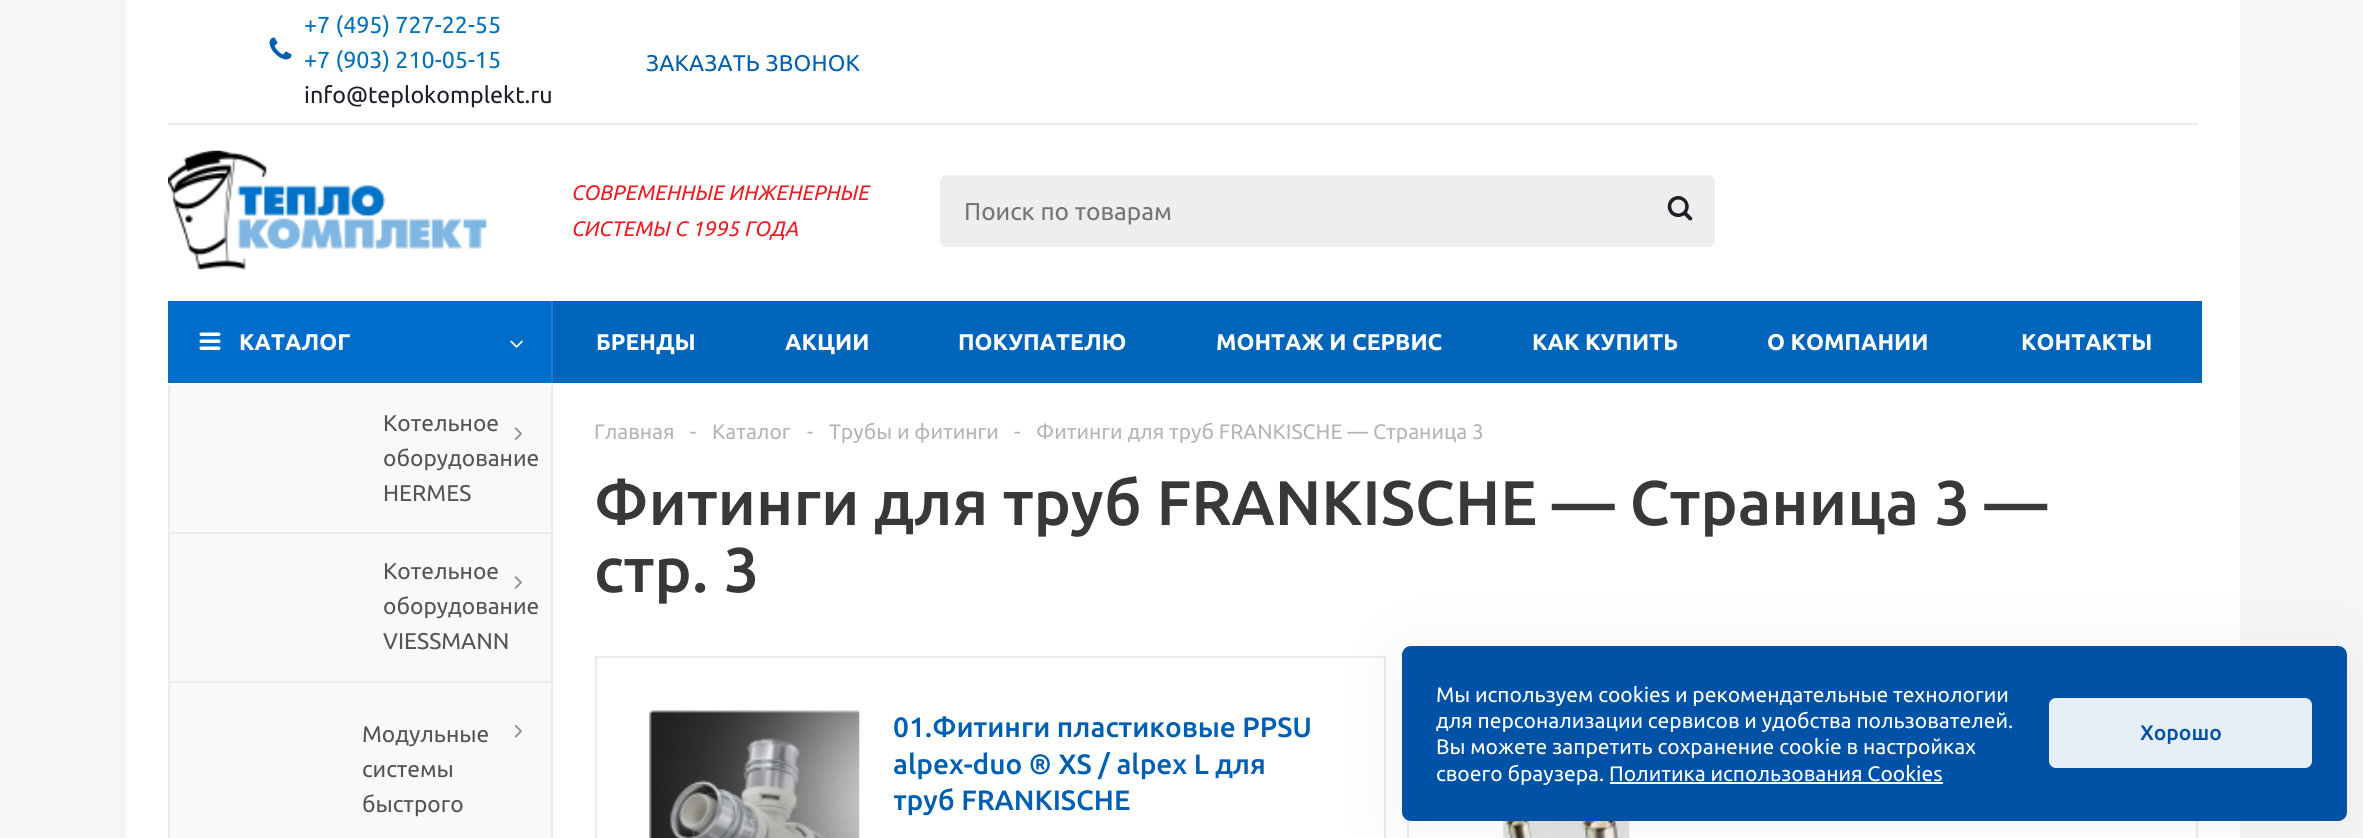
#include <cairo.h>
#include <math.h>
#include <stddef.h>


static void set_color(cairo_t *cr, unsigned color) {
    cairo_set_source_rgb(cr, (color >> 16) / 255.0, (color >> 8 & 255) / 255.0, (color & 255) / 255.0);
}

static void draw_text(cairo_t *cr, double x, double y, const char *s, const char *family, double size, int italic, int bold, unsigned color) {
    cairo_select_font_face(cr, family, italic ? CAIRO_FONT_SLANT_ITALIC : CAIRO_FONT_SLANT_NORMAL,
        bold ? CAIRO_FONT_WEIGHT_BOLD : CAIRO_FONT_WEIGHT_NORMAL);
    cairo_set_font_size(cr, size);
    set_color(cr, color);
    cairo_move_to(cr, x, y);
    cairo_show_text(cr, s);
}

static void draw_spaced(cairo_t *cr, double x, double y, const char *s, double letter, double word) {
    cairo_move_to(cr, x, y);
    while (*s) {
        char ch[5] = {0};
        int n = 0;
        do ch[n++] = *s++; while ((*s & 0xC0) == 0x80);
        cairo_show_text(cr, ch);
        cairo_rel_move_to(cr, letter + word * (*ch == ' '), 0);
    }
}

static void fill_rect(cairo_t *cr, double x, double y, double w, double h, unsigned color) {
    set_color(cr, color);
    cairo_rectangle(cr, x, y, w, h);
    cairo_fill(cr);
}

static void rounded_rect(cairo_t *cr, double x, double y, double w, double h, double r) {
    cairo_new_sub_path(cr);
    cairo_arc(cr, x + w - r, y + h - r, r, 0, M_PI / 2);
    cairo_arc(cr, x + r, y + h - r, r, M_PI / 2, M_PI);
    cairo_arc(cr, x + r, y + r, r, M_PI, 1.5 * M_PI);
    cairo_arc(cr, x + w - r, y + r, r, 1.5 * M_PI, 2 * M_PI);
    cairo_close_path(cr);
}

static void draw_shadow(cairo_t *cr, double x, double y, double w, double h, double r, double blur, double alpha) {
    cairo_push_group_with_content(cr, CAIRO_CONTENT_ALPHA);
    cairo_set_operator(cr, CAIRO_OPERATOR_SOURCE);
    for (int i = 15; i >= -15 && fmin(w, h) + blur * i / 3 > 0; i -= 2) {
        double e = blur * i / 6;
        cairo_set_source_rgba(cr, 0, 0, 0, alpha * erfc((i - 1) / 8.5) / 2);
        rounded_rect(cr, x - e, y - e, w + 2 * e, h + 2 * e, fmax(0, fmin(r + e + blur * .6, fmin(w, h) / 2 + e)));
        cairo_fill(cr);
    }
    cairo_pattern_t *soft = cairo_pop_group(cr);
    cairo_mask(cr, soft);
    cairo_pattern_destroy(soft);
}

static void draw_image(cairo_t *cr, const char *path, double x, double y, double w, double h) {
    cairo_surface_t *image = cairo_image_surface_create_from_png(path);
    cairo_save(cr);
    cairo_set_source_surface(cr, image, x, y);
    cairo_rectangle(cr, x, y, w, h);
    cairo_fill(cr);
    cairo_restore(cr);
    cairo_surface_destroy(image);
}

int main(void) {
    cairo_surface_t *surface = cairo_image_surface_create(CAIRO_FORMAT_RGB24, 2363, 838);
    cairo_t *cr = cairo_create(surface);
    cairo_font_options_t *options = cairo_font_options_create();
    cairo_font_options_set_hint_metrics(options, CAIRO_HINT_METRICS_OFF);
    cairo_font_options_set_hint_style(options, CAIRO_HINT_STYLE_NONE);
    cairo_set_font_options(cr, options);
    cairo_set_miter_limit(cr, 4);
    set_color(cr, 0xF6F6F7);
    cairo_paint(cr);
    fill_rect(cr, 126, 0, 2114, 838, 0xFFFFFF);
    draw_image(cr, "assets/img1.png", 269, 37, 23, 23);
    draw_text(cr, 304, 33, "+7 (495) 727-22-55", "Ubuntu", 23.25, 0, 0, 0x0072BC);
    draw_text(cr, 304, 68, "+7 (903) 210-05-15", "Ubuntu", 23.25, 0, 0, 0x0072BC);
    draw_text(cr, 304, 103, "info@teplokomplekt.ru", "Ubuntu", 23.25, 0, 0, 0x1D2029);
    cairo_set_font_size(cr, 22.75);
    set_color(cr, 0x005FB1);
    draw_spaced(cr, 646, 71, "ЗАКАЗАТЬ ЗВОНОК", 0.2, 0);
    fill_rect(cr, 168, 123, 2030, 2, 0xEAEBEC);
    draw_image(cr, "assets/img2.png", 168, 150, 319, 120);
    draw_text(cr, 571, 200, "СОВРЕМЕННЫЕ ИНЖЕНЕРНЫЕ", "Ubuntu", 21, 1, 0, 0xEE1D24);
    draw_text(cr, 571, 236, "СИСТЕМЫ С 1995 ГОДА", "Ubuntu", 21, 1, 0, 0xEE1D24);
    set_color(cr, 0xEEEEEE);
    rounded_rect(cr, 940, 175, 775, 72, 7);
    cairo_fill(cr);
    draw_text(cr, 964, 220, "Поиск по товарам", "Ubuntu", 24.5, 0, 0, 0x757575);
    draw_image(cr, "assets/img3.png", 1667, 196, 26, 25);
    fill_rect(cr, 553, 301, 1649, 82, 0x0065BB);
    fill_rect(cr, 168, 301, 383, 82, 0x006DCA);
    draw_image(cr, "assets/img4.png", 199, 332, 22, 18);
    draw_text(cr, 239, 350, "КАТАЛОГ", "Ubuntu", 22.75, 0, 1, 0xFFFFFF);
    fill_rect(cr, 551, 301, 2, 82, 0x1A7CCF);
    draw_image(cr, "assets/img5.png", 510, 340, 13, 8);
    draw_text(cr, 596, 350, "БРЕНДЫ", "Ubuntu", 22.75, 0, 1, 0xFFFFFF);
    draw_text(cr, 785, 350, "АКЦИИ", "Ubuntu", 22.75, 0, 1, 0xFFFFFF);
    draw_text(cr, 958, 350, "ПОКУПАТЕЛЮ", "Ubuntu", 22.75, 0, 1, 0xFFFFFF);
    draw_text(cr, 1216, 350, "МОНТАЖ И СЕРВИС", "Ubuntu", 22.75, 0, 1, 0xFFFFFF);
    draw_text(cr, 1532, 350, "КАК КУПИТЬ", "Ubuntu", 22.75, 0, 1, 0xFFFFFF);
    draw_text(cr, 1767, 350, "О КОМПАНИИ", "Ubuntu", 22.75, 0, 1, 0xFFFFFF);
    draw_text(cr, 2021, 350, "КОНТАКТЫ", "Ubuntu", 22.75, 0, 1, 0xFFFFFF);
    fill_rect(cr, 170, 385, 381, 147, 0xF9F9F9);
    fill_rect(cr, 551, 385, 2, 147, 0xEAEBEC);
    fill_rect(cr, 168, 385, 2, 147, 0xEAEBEC);
    draw_text(cr, 383, 431, "Котельное", "Ubuntu", 22.75, 0, 0, 0x555555);
    draw_text(cr, 383, 466, "оборудование", "Ubuntu", 22.75, 0, 0, 0x555555);
    draw_text(cr, 383, 501, "HERMES", "Ubuntu", 22.75, 0, 0, 0x555555);
    draw_image(cr, "assets/img6.png", 514, 427, 8, 13);
    fill_rect(cr, 170, 534, 381, 147, 0xF9F9F9);
    fill_rect(cr, 168, 532, 385, 2, 0xEAEBEC);
    fill_rect(cr, 551, 532, 2, 149, 0xEAEBEC);
    fill_rect(cr, 168, 532, 2, 149, 0xEAEBEC);
    draw_text(cr, 383, 579, "Котельное", "Ubuntu", 22.75, 0, 0, 0x555555);
    draw_text(cr, 383, 614, "оборудование", "Ubuntu", 22.75, 0, 0, 0x555555);
    draw_text(cr, 383, 649, "VIESSMANN", "Ubuntu", 22.75, 0, 0, 0x555555);
    draw_image(cr, "assets/img7.png", 514, 576, 8, 13);
    fill_rect(cr, 170, 683, 381, 155, 0xF9F9F9);
    fill_rect(cr, 168, 681, 385, 2, 0xEAEBEC);
    fill_rect(cr, 551, 681, 2, 157, 0xEAEBEC);
    fill_rect(cr, 168, 681, 2, 157, 0xEAEBEC);
    draw_text(cr, 362, 742, "Модульные", "Ubuntu", 22.75, 0, 0, 0x555555);
    draw_text(cr, 362, 777, "системы", "Ubuntu", 22.75, 0, 0, 0x555555);
    draw_text(cr, 362, 812, "быстрого", "Ubuntu", 22.75, 0, 0, 0x555555);
    draw_image(cr, "assets/img8.png", 514, 724, 8, 14);
    draw_text(cr, 594, 439, "Главная", "Ubuntu", 21, 0, 0, 0xB6B5B5);
    draw_text(cr, 690, 439, "-", "Ubuntu", 21, 0, 0, 0xB6B5B5);
    draw_text(cr, 712, 439, "Каталог", "Ubuntu", 21, 0, 0, 0xB6B5B5);
    draw_text(cr, 807, 439, "-", "Ubuntu", 21, 0, 0, 0xB6B5B5);
    draw_text(cr, 829, 439, "Трубы и фитинги", "Ubuntu", 21, 0, 0, 0xB6B5B5);
    draw_text(cr, 1014, 439, "-", "Ubuntu", 21, 0, 0, 0xB6B5B5);
    draw_text(cr, 1036, 439, "Фитинги для труб FRANKISCHE — Страница 3", "Ubuntu", 21, 0, 0, 0xB6B5B5);
    draw_text(cr, 594, 525, "Фитинги для труб FRANKISCHE — Страница 3 —", "Ubuntu Medium", 63, 0, 0, 0x383838);
    draw_text(cr, 594, 592, "стр. 3", "Ubuntu Medium", 63, 0, 0, 0x383838);
    cairo_rectangle(cr, 596, 657, 789, 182);
    set_color(cr, 0xEAEBEC);
    cairo_stroke(cr);
    draw_image(cr, "assets/img9.png", 649, 710, 211, 128);
    draw_text(cr, 893, 737, "01.Фитинги пластиковые PPSU", "Ubuntu Medium", 28, 0, 0, 0x005FB1);
    draw_text(cr, 893, 774, "alpex-duo ® XS / alpex L для", "Ubuntu Medium", 28, 0, 0, 0x005FB1);
    cairo_save(cr);
    cairo_rectangle(cr, 894, 711, 438, 119);
    cairo_clip(cr);
    draw_text(cr, 893, 810, "труб FRANKISCHE", "Ubuntu Medium", 28, 0, 0, 0x005FB1);
    cairo_restore(cr);
    cairo_rectangle(cr, 1408, 657, 789, 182);
    set_color(cr, 0xEAEBEC);
    cairo_stroke(cr);
    draw_image(cr, "assets/img10.png", 1503, 821, 127, 17);
    set_color(cr, 0x000000);
    draw_shadow(cr, 1402, 653, 945, 175, 9, 38, 0.05);
    set_color(cr, 0x0052A7);
    rounded_rect(cr, 1402, 646, 945, 175, 9);
    cairo_fill(cr);
    draw_text(cr, 1436, 702, "Мы используем cookies и рекомендательные технологии", "Ubuntu", 21, 0, 0, 0xFFFFFF);
    draw_text(cr, 1436, 728, "для персонализации сервисов и удобства пользователей.", "Ubuntu", 21, 0, 0, 0xFFFFFF);
    draw_text(cr, 1436, 754, "Вы можете запретить сохранение cookie в настройках", "Ubuntu", 21, 0, 0, 0xFFFFFF);
    draw_text(cr, 1436, 781, "своего браузера. Политика использования Cookies", "Ubuntu", 21, 0, 0, 0xFFFFFF);
    fill_rect(cr, 1610, 782, 333, 2, 0xFFFFFF);
    set_color(cr, 0xE6EEF6);
    rounded_rect(cr, 2049, 698, 263, 70, 7);
    cairo_fill(cr);
    draw_text(cr, 2140, 740, "Хорошо", "Ubuntu Medium", 21, 0, 0, 0x0052A7);
    cairo_surface_write_to_png(surface, "output.png");
    cairo_font_options_destroy(options);
    cairo_destroy(cr);
    cairo_surface_destroy(surface);
    return 0;
}
